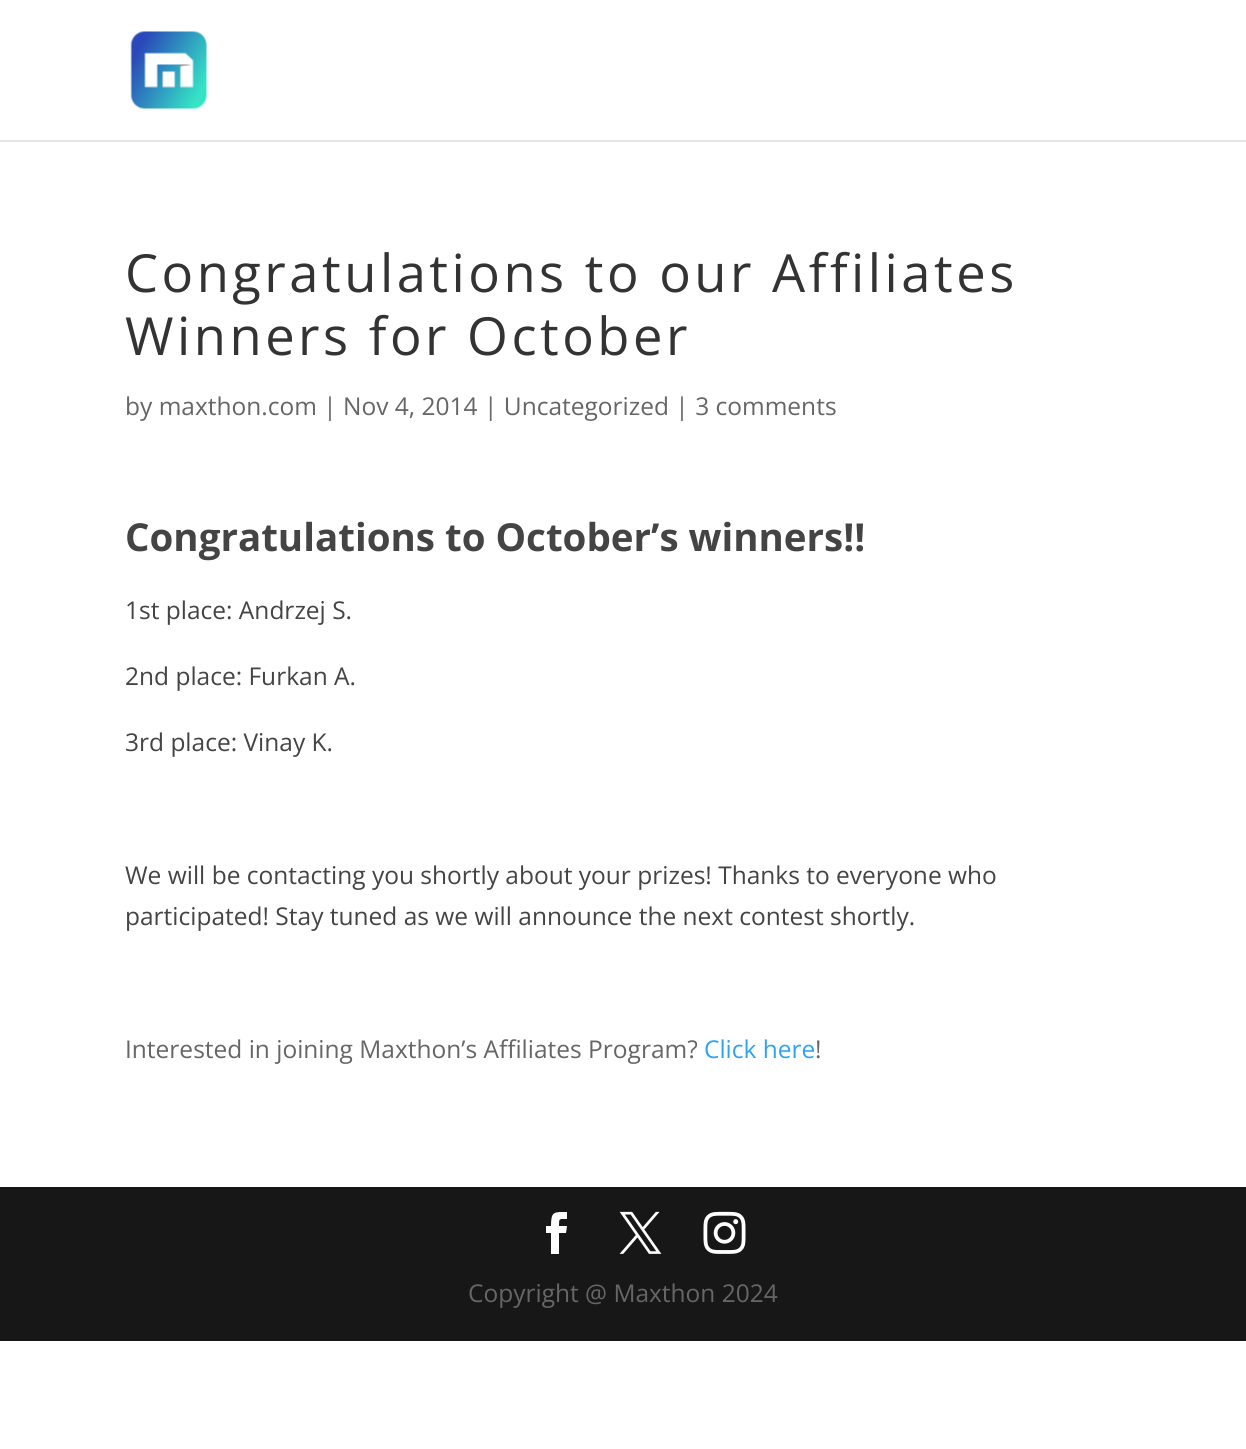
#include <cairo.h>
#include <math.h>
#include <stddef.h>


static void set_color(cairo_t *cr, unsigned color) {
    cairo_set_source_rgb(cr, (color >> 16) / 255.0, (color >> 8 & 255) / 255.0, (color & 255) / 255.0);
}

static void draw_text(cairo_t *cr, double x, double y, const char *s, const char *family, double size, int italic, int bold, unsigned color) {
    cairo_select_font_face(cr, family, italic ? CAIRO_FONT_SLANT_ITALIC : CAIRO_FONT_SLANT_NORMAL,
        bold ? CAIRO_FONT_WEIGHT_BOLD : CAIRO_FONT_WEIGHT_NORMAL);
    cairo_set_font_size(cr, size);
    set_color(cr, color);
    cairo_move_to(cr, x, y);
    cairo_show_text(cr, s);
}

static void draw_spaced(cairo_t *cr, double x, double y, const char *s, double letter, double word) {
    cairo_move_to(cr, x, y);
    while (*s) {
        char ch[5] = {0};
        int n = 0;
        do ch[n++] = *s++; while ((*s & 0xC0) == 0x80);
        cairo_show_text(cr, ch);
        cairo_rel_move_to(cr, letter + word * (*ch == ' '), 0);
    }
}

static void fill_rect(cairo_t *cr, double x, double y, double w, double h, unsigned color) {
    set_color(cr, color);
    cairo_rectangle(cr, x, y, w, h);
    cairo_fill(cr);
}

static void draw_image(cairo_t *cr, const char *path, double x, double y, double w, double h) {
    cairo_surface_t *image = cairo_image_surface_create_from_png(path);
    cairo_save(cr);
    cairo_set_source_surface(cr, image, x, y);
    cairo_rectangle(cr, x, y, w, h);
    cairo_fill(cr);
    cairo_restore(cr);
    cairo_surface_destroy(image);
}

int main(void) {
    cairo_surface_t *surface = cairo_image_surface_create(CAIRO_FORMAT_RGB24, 1246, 1449);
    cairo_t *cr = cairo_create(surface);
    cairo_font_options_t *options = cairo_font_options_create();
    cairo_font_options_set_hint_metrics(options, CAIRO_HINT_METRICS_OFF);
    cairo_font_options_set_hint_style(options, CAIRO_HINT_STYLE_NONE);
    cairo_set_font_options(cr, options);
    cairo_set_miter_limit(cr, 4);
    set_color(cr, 0xFFFFFF);
    cairo_paint(cr);
    fill_rect(cr, 0, 140, 1246, 2, 0xE6E6E6);
    draw_image(cr, "assets/img1.png", 130, 31, 77, 78);
    cairo_select_font_face(cr, "Open Sans", CAIRO_FONT_SLANT_NORMAL, CAIRO_FONT_WEIGHT_NORMAL);
    cairo_set_font_size(cr, 52.5);
    set_color(cr, 0x333333);
    draw_spaced(cr, 125, 292, "Congratulations to our Affiliates", 3.5, 0);
    draw_spaced(cr, 125, 355, "Winners for October", 3.5, 0);
    draw_text(cr, 125, 415, "by maxthon.com | Nov 4, 2014 | Uncategorized | 3 comments", "Open Sans", 24.5, 0, 0, 0x666666);
    draw_text(cr, 125, 551, "Congratulations to October’s winners!!", "Open Sans", 38.5, 0, 1, 0x444444);
    draw_text(cr, 125, 619, "1st place: Andrzej S.", "Open Sans", 24.5, 0, 0, 0x444444);
    draw_text(cr, 125, 685, "2nd place: Furkan A.", "Open Sans", 24.5, 0, 0, 0x444444);
    draw_text(cr, 125, 751, "3rd place: Vinay K.", "Open Sans", 24.5, 0, 0, 0x444444);
    draw_text(cr, 125, 884, "We will be contacting you shortly about your prizes! Thanks to everyone who", "Open Sans", 24.5, 0, 0, 0x444444);
    draw_text(cr, 125, 925, "participated! Stay tuned as we will announce the next contest shortly.", "Open Sans", 24.5, 0, 0, 0x444444);
    draw_text(cr, 125, 1058, "Interested in joining Maxthon’s Affiliates Program?", "Open Sans", 24.5, 0, 0, 0x666666);
    draw_text(cr, 704, 1058, "Click here", "Open Sans", 24.5, 0, 0, 0x2EA3F2);
    draw_text(cr, 815, 1058, "!", "Open Sans", 24.5, 0, 0, 0x666666);
    fill_rect(cr, 0, 1187, 1246, 154, 0x171717);
    set_color(cr, 0xFFFFFF);
    cairo_new_path(cr);
    cairo_move_to(cr, 551, 1254);
    cairo_line_to(cr, 559, 1254);
    cairo_line_to(cr, 559, 1233);
    cairo_line_to(cr, 566, 1233);
    cairo_line_to(cr, 567, 1226);
    cairo_line_to(cr, 559, 1226);
    cairo_curve_to(cr, 559, 1218, 559, 1219, 567, 1219);
    cairo_line_to(cr, 567, 1212);
    cairo_curve_to(cr, 554, 1212, 551, 1211, 551, 1226);
    cairo_line_to(cr, 546, 1226);
    cairo_line_to(cr, 546, 1233);
    cairo_line_to(cr, 551, 1233);
    cairo_close_path(cr);
    cairo_fill(cr);
    draw_image(cr, "assets/img2.png", 619, 1211, 43, 43);
    draw_image(cr, "assets/img3.png", 703, 1211, 43, 43);
    draw_text(cr, 468, 1302, "Copyright @ Maxthon 2024", "Open Sans", 24.5, 0, 0, 0x666666);
    cairo_surface_write_to_png(surface, "output.png");
    cairo_font_options_destroy(options);
    cairo_destroy(cr);
    cairo_surface_destroy(surface);
    return 0;
}
